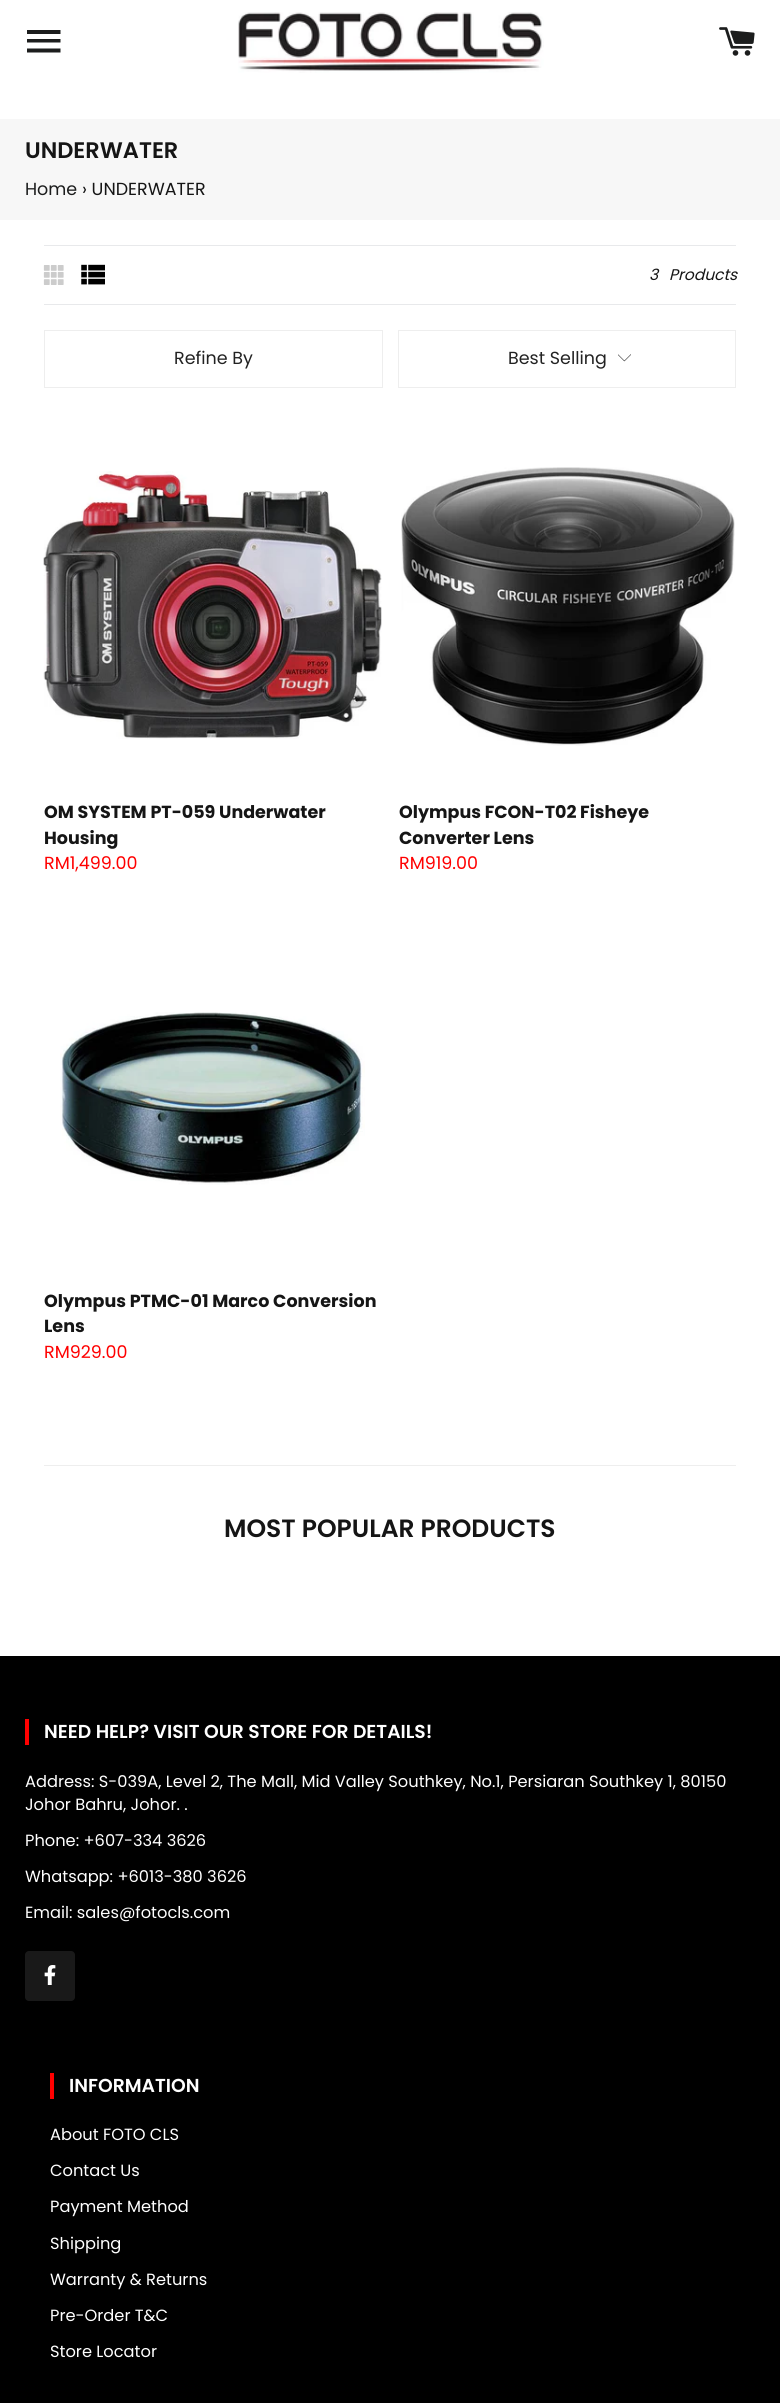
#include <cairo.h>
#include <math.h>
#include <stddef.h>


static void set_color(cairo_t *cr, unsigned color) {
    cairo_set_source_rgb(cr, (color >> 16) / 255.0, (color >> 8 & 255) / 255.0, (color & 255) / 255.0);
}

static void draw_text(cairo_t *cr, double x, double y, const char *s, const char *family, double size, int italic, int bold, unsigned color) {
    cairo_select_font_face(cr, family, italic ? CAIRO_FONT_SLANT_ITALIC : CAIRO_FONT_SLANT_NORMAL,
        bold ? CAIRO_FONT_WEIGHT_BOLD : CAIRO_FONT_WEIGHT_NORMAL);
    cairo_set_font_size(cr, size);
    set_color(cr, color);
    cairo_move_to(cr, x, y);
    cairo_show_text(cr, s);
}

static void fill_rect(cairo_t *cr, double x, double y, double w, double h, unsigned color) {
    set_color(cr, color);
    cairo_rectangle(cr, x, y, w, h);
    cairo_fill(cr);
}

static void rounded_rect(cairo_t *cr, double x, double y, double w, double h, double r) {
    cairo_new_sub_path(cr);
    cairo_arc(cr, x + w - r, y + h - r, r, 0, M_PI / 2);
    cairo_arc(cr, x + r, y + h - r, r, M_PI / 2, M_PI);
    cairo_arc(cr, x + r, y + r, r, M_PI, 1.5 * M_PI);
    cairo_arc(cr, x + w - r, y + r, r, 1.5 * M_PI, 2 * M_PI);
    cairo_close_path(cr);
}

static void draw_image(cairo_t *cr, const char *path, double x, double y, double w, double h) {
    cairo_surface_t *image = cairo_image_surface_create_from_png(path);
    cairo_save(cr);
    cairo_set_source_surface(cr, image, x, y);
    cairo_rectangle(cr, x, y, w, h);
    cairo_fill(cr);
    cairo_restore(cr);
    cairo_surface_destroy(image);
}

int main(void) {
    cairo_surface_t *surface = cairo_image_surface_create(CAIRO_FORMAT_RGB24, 780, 2403);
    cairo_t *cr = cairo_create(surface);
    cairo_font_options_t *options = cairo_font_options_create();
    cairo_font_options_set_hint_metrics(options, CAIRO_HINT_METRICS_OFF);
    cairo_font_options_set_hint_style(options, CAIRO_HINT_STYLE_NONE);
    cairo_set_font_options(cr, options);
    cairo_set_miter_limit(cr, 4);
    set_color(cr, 0xFFFFFF);
    cairo_paint(cr);
    set_color(cr, 0x1C1D1D);
    cairo_new_path(cr);
    cairo_move_to(cr, 27, 30);
    cairo_line_to(cr, 60.5, 30);
    cairo_line_to(cr, 60.5, 34);
    cairo_line_to(cr, 27, 34);
    cairo_close_path(cr);
    cairo_move_to(cr, 27, 39);
    cairo_line_to(cr, 60.5, 39);
    cairo_line_to(cr, 60.5, 42.5);
    cairo_line_to(cr, 27, 42.5);
    cairo_close_path(cr);
    cairo_move_to(cr, 27, 48.5);
    cairo_line_to(cr, 60.5, 48.5);
    cairo_line_to(cr, 60.5, 52.5);
    cairo_line_to(cr, 27, 52.5);
    cairo_close_path(cr);
    cairo_fill(cr);
    draw_image(cr, "assets/img1.png", 238, 12, 306, 61);
    draw_image(cr, "assets/img2.png", 719, 27, 36, 29);
    fill_rect(cr, 0, 119, 780, 101, 0xF7F7F7);
    draw_text(cr, 25, 158, "UNDERWATER", "Poppins SemiBold", 22.5, 0, 0, 0x151515);
    draw_text(cr, 25, 195, "Home", "Poppins", 17.5, 0, 0, 0x1C1D1D);
    draw_text(cr, 82, 195, "› UNDERWATER", "Poppins", 17.5, 0, 0, 0x151515);
    fill_rect(cr, 44, 245, 692, 1, 0xE8E9EB);
    fill_rect(cr, 44, 304, 692, 1, 0xE8E9EB);
    draw_image(cr, "assets/img3.png", 43, 265, 21, 20);
    draw_image(cr, "assets/img4.png", 81, 264, 24, 21);
    draw_text(cr, 649, 280, "3", "Poppins", 15.5, 1, 0, 0x151515);
    draw_text(cr, 669, 280, "Products", "Poppins", 15.5, 1, 0, 0x151515);
    cairo_rectangle(cr, 44.5, 330.5, 338, 57);
    set_color(cr, 0xEEEEEE);
    cairo_set_line_width(cr, 1);
    cairo_stroke(cr);
    draw_text(cr, 174, 364, "Refine By", "Poppins", 17.5, 0, 0, 0x222222);
    cairo_rectangle(cr, 398.5, 330.5, 337, 57);
    set_color(cr, 0xEEEEEE);
    cairo_stroke(cr);
    draw_text(cr, 508, 364, "Best Selling", "Poppins", 17.5, 0, 0, 0x222222);
    draw_image(cr, "assets/img5.png", 618, 354, 13, 8);
    draw_image(cr, "assets/img6.png", 43, 471, 339, 268);
    draw_text(cr, 44, 818, "OM SYSTEM PT-059 Underwater", "Poppins", 17.5, 0, 1, 0x151515);
    draw_text(cr, 44, 844, "Housing", "Poppins", 17.5, 0, 1, 0x151515);
    draw_text(cr, 44, 869, "RM1,499.00", "Poppins", 17.5, 0, 0, 0xFF0000);
    draw_image(cr, "assets/img7.png", 401, 467, 334, 279);
    draw_text(cr, 399, 818, "Olympus FCON-T02 Fisheye", "Poppins", 17.5, 0, 1, 0x151515);
    draw_text(cr, 399, 844, "Converter Lens", "Poppins", 17.5, 0, 1, 0x151515);
    draw_text(cr, 399, 869, "RM919.00", "Poppins", 17.5, 0, 0, 0xFF0000);
    draw_image(cr, "assets/img8.png", 60, 1012, 305, 173);
    draw_text(cr, 44, 1307, "Olympus PTMC-01 Marco Conversion", "Poppins", 17.5, 0, 1, 0x151515);
    draw_text(cr, 44, 1332, "Lens", "Poppins", 17.5, 0, 1, 0x151515);
    draw_text(cr, 44, 1358, "RM929.00", "Poppins", 17.5, 0, 0, 0xFF0000);
    fill_rect(cr, 44, 1465, 692, 1, 0xEEEEEE);
    draw_text(cr, 224, 1537, "MOST POPULAR PRODUCTS", "Poppins SemiBold", 25, 0, 0, 0x151515);
    fill_rect(cr, 0, 1656, 780, 747, 0x000000);
    fill_rect(cr, 25, 1719, 4, 26, 0xFF0000);
    draw_text(cr, 44, 1738, "NEED HELP? VISIT OUR STORE FOR DETAILS!", "Poppins SemiBold", 18.75, 0, 0, 0xFFFFFF);
    draw_text(cr, 25, 1787, "Address: S-039A, Level 2, The Mall, Mid Valley Southkey, No.1, Persiaran Southkey 1, 80150", "Poppins", 16.25, 0, 0, 0xFFFFFF);
    draw_text(cr, 25, 1810, "Johor Bahru, Johor. .", "Poppins", 16.25, 0, 0, 0xFFFFFF);
    draw_text(cr, 25, 1846, "Phone: +607-334 3626", "Poppins", 16.25, 0, 0, 0xFFFFFF);
    draw_text(cr, 25, 1882, "Whatsapp: +6013-380 3626", "Poppins", 16.25, 0, 0, 0xFFFFFF);
    draw_text(cr, 25, 1918, "Email: sales@fotocls.com", "Poppins", 16.25, 0, 0, 0xFFFFFF);
    draw_image(cr, "assets/img9.png", 44, 1965, 12, 20);
    cairo_set_source_rgba(cr, 1, 1, 1, 0.1);
    rounded_rect(cr, 25, 1951, 50, 50, 4);
    cairo_fill(cr);
    fill_rect(cr, 50, 2073, 4, 26, 0xFF0000);
    draw_text(cr, 69, 2092, "INFORMATION", "Poppins SemiBold", 18.75, 0, 0, 0xFFFFFF);
    draw_text(cr, 50, 2140, "About FOTO CLS", "Poppins", 16.25, 0, 0, 0xFFFFFF);
    draw_text(cr, 50, 2176, "Contact Us", "Poppins", 16.25, 0, 0, 0xFFFFFF);
    draw_text(cr, 50, 2212, "Payment Method", "Poppins", 16.25, 0, 0, 0xFFFFFF);
    draw_text(cr, 50, 2249, "Shipping", "Poppins", 16.25, 0, 0, 0xFFFFFF);
    draw_text(cr, 50, 2285, "Warranty & Returns", "Poppins", 16.25, 0, 0, 0xFFFFFF);
    draw_text(cr, 50, 2321, "Pre-Order T&C", "Poppins", 16.25, 0, 0, 0xFFFFFF);
    draw_text(cr, 50, 2357, "Store Locator", "Poppins", 16.25, 0, 0, 0xFFFFFF);
    cairo_surface_write_to_png(surface, "output.png");
    cairo_font_options_destroy(options);
    cairo_destroy(cr);
    cairo_surface_destroy(surface);
    return 0;
}
